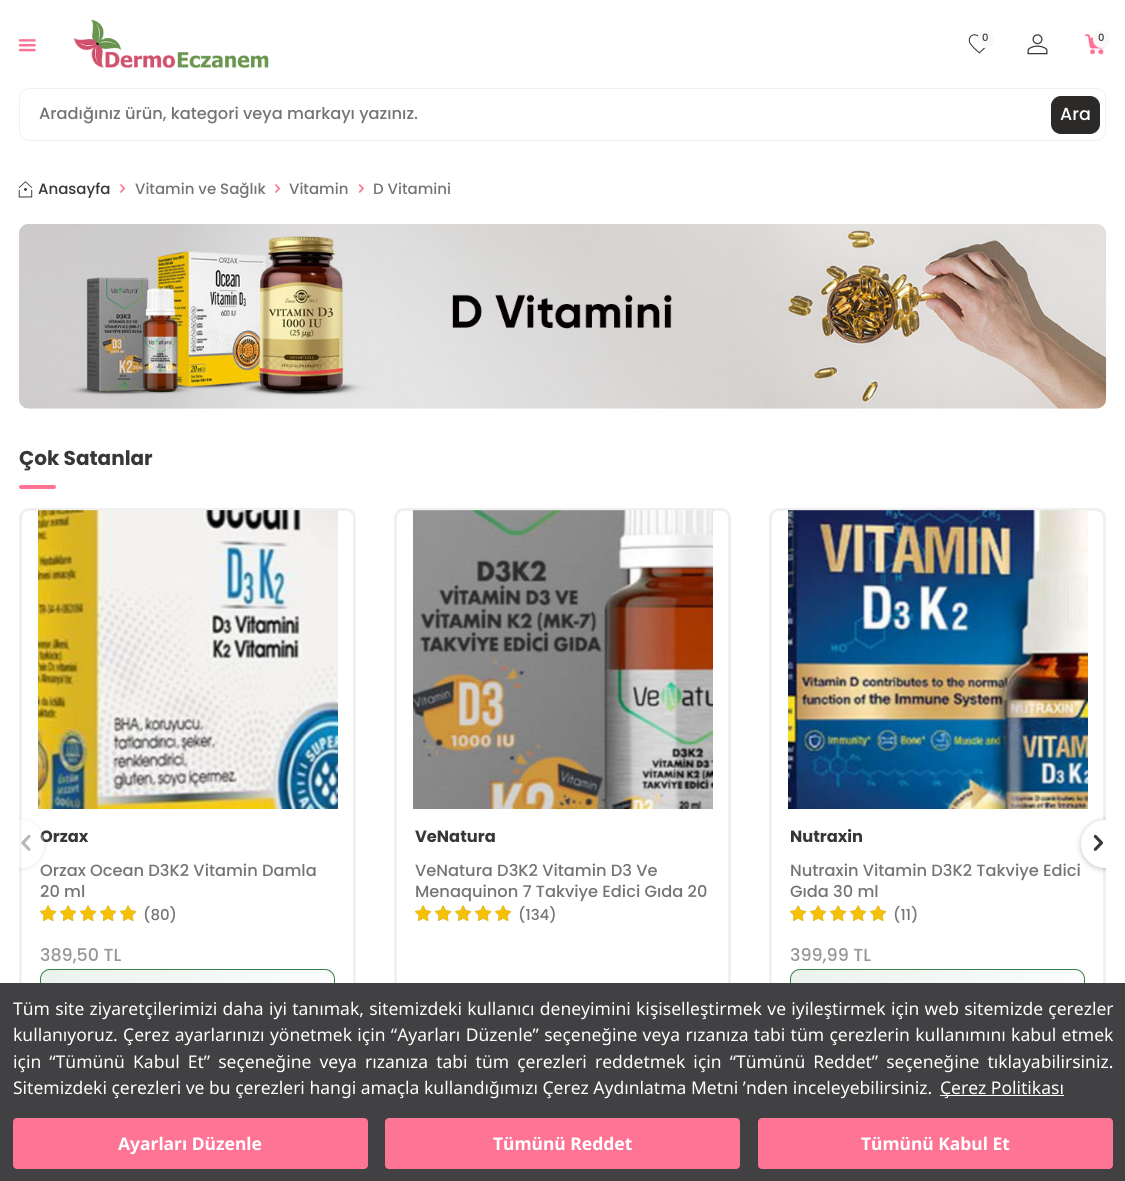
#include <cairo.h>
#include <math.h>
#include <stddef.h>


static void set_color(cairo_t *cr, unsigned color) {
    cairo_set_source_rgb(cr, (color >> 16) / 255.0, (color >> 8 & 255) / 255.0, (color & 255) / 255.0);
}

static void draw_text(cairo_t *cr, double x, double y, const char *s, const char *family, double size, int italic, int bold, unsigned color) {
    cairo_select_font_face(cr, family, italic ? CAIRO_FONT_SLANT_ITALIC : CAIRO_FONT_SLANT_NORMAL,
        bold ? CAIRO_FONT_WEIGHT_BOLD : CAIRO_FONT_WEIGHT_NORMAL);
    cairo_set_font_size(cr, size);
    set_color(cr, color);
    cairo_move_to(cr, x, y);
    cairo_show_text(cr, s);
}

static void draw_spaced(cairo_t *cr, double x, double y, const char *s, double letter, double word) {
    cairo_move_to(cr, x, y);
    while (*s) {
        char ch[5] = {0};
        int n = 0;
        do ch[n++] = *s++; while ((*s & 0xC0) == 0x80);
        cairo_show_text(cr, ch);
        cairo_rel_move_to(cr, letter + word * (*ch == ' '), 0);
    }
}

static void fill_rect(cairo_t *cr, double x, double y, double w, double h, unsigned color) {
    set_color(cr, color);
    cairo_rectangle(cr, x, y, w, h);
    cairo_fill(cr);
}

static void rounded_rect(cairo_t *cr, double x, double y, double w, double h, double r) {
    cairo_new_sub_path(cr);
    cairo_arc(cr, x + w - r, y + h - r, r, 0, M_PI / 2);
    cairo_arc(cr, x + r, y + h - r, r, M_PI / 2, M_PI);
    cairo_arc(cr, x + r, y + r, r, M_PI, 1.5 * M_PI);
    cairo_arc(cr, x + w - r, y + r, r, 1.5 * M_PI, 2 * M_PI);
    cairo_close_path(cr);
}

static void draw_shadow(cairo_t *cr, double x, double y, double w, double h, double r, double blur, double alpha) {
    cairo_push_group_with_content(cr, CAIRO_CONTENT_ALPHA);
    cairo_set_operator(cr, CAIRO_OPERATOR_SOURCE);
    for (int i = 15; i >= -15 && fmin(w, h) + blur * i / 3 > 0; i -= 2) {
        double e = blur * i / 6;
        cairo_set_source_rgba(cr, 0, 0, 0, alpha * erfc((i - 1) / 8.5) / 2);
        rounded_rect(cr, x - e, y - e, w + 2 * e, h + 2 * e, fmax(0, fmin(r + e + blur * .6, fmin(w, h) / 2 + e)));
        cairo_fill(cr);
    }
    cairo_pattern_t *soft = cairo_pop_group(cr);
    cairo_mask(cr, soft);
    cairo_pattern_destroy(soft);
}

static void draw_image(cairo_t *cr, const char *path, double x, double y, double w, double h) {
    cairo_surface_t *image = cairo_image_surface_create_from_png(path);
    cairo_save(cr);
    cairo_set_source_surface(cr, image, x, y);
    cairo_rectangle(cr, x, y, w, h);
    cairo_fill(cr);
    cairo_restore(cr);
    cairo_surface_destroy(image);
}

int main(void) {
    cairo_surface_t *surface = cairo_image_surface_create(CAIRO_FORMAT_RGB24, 1125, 1181);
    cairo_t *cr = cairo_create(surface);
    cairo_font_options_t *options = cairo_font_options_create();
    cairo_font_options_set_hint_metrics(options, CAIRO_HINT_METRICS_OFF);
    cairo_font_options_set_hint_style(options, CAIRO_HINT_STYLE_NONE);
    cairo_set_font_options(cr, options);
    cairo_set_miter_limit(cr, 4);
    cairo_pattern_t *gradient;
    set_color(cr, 0xFFFFFF);
    cairo_paint(cr);
    draw_image(cr, "assets/img1.png", 73, 20, 196, 48);
    draw_image(cr, "assets/img2.png", 968, 34, 18, 20);
    set_color(cr, 0xF9F9F9);
    rounded_rect(cr, 978.5, 30.5, 15, 17, 7.5);
    cairo_fill_preserve(cr);
    cairo_set_line_width(cr, 1);
    cairo_stroke(cr);
    draw_text(cr, 982, 41, "0", "Poppins Medium", 10, 0, 0, 0x373738);
    draw_image(cr, "assets/img3.png", 1027, 34, 21, 21);
    draw_image(cr, "assets/img4.png", 1085, 34, 20, 21);
    set_color(cr, 0xF9F9F9);
    rounded_rect(cr, 1093.5, 30.5, 16, 17, 8);
    cairo_fill_preserve(cr);
    cairo_stroke(cr);
    draw_text(cr, 1098, 41, "0", "Poppins Medium", 10, 0, 0, 0x373738);
    draw_image(cr, "assets/img5.png", 18, 39, 18, 13);
    rounded_rect(cr, 19.5, 88.5, 1086, 52, 9.5);
    set_color(cr, 0xF0F0F0);
    cairo_stroke(cr);
    draw_text(cr, 39, 119, "Aradığınız ürün, kategori veya markayı yazınız.", "Poppins Medium", 16.25, 0, 0, 0x747474);
    set_color(cr, 0x2C2A28);
    rounded_rect(cr, 1051.5, 96.5, 48, 37, 9.5);
    cairo_fill_preserve(cr);
    cairo_stroke(cr);
    draw_text(cr, 1060, 120, "Ara", "Poppins Medium", 17.5, 0, 0, 0xFFFFFF);
    draw_image(cr, "assets/img6.png", 18, 181, 15, 17);
    draw_text(cr, 38, 194, "Anasayfa", "Poppins Medium", 15, 0, 0, 0x373738);
    draw_image(cr, "assets/img7.png", 120, 184, 5, 9);
    draw_text(cr, 135, 194, "Vitamin ve Sağlık", "Poppins Medium", 15, 0, 0, 0x747474);
    draw_image(cr, "assets/img7.png", 275, 184, 5, 9);
    draw_text(cr, 289, 194, "Vitamin", "Poppins Medium", 15, 0, 0, 0x747474);
    draw_image(cr, "assets/img8.png", 358, 184, 6, 9);
    draw_text(cr, 373, 194, "D Vitamini", "Poppins Medium", 15, 0, 0, 0x747474);
    draw_image(cr, "assets/img9.png", 19, 224, 1088, 185);
    draw_text(cr, 19, 465, "Çok Satanlar", "Poppins", 20, 0, 1, 0x373738);
    set_color(cr, 0xFE7494);
    rounded_rect(cr, 19, 485, 37, 4, 2);
    cairo_fill(cr);
    rounded_rect(cr, 20.5, 509.5, 334, 623, 8.5);
    set_color(cr, 0xF0F0F0);
    cairo_set_line_width(cr, 3);
    cairo_stroke(cr);
    cairo_save(cr);
    cairo_rectangle(cr, 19, 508, 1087, 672);
    cairo_clip(cr);
    cairo_set_fill_rule(cr, CAIRO_FILL_RULE_EVEN_ODD);
    cairo_new_path(cr);
    cairo_move_to(cr, 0, 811);
    cairo_line_to(cr, 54, 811);
    cairo_line_to(cr, 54, 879);
    cairo_line_to(cr, 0, 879);
    cairo_close_path(cr);
    cairo_move_to(cr, 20, 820);
    cairo_curve_to(cr, 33.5, 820, 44, 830.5, 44, 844);
    cairo_curve_to(cr, 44, 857.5, 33.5, 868, 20, 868);
    cairo_curve_to(cr, 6.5, 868, -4, 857.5, -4, 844);
    cairo_curve_to(cr, -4, 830.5, 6.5, 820, 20, 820);
    cairo_close_path(cr);
    cairo_clip(cr);
    set_color(cr, 0x000000);
    draw_shadow(cr, -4, 821, 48, 48, 24, 3, 0.08);
    cairo_restore(cr);
    draw_text(cr, 40, 842, "Orzax", "Poppins", 16.25, 0, 1, 0x373738);
    draw_text(cr, 40, 876, "Orzax Ocean D3K2 Vitamin Damla", "Poppins Medium", 16.25, 0, 0, 0x747474);
    cairo_save(cr);
    cairo_rectangle(cr, 19, 508, 1087, 672);
    cairo_clip(cr);
    cairo_set_source_rgba(cr, 1, 1, 1, 0.35);
    cairo_arc(cr, 20, 844, 24, 0, 2 * M_PI);
    cairo_fill(cr);
    cairo_restore(cr);
    draw_image(cr, "assets/img10.png", 21, 834, 10, 17);
    draw_image(cr, "assets/img11.png", 38, 510, 300, 299);
    draw_text(cr, 40, 897, "20 ml", "Poppins Medium", 16.25, 0, 0, 0x747474);
    draw_image(cr, "assets/img12.png", 40, 905, 17, 16);
    draw_image(cr, "assets/img13.png", 40, 905, 17, 16);
    draw_image(cr, "assets/img12.png", 60, 905, 17, 16);
    draw_image(cr, "assets/img13.png", 60, 905, 17, 16);
    draw_image(cr, "assets/img12.png", 80, 905, 17, 16);
    draw_image(cr, "assets/img13.png", 80, 905, 17, 16);
    draw_image(cr, "assets/img12.png", 100, 905, 17, 16);
    draw_image(cr, "assets/img13.png", 100, 905, 17, 16);
    draw_image(cr, "assets/img12.png", 120, 905, 17, 16);
    draw_image(cr, "assets/img13.png", 120, 905, 17, 16);
    draw_text(cr, 143, 920, "(80)", "Poppins Medium", 15, 0, 0, 0x747474);
    draw_text(cr, 40, 961, "389,50 TL", "Poppins Medium", 17.5, 0, 0, 0x979797);
    cairo_save(cr);
    rounded_rect(cr, 40, 969, 295, 81, 10);
    cairo_clip(cr);
    gradient = cairo_pattern_create_linear(95, 917, 280, 1102);
    cairo_pattern_add_color_stop_rgba(gradient, 0, 0.922, 0.949, 0.929, 1);
    cairo_pattern_add_color_stop_rgba(gradient, 1, 1, 1, 1, 1);
    cairo_set_source(cr, gradient);
    cairo_pattern_destroy(gradient);
    cairo_rectangle(cr, 41, 970, 293, 13);
    cairo_fill(cr);
    cairo_restore(cr);
    rounded_rect(cr, 40.5, 969.5, 294, 80, 9.5);
    set_color(cr, 0x36804A);
    cairo_set_line_width(cr, 1);
    cairo_stroke(cr);
    rounded_rect(cr, 395.5, 509.5, 334, 623, 8.5);
    set_color(cr, 0xF0F0F0);
    cairo_set_line_width(cr, 3);
    cairo_stroke(cr);
    draw_image(cr, "assets/img14.png", 413, 510, 300, 299);
    draw_text(cr, 415, 842, "VeNatura", "Poppins", 16.25, 0, 1, 0x373738);
    draw_text(cr, 415, 876, "VeNatura D3K2 Vitamin D3 Ve", "Poppins Medium", 16.25, 0, 0, 0x747474);
    draw_text(cr, 415, 897, "Menaquinon 7 Takviye Edici Gıda 20", "Poppins Medium", 16.25, 0, 0, 0x747474);
    draw_image(cr, "assets/img12.png", 415, 905, 17, 16);
    draw_image(cr, "assets/img13.png", 415, 905, 17, 16);
    draw_image(cr, "assets/img12.png", 435, 905, 17, 16);
    draw_image(cr, "assets/img13.png", 435, 905, 17, 16);
    draw_image(cr, "assets/img12.png", 455, 905, 17, 16);
    draw_image(cr, "assets/img13.png", 455, 905, 17, 16);
    draw_image(cr, "assets/img12.png", 475, 905, 17, 16);
    draw_image(cr, "assets/img13.png", 475, 905, 17, 16);
    draw_image(cr, "assets/img12.png", 495, 905, 17, 16);
    draw_image(cr, "assets/img13.png", 495, 905, 17, 16);
    draw_text(cr, 518, 920, "(134)", "Poppins Medium", 15, 0, 0, 0x747474);
    rounded_rect(cr, 770.5, 509.5, 334, 623, 8.5);
    set_color(cr, 0xF0F0F0);
    cairo_stroke(cr);
    draw_image(cr, "assets/img15.png", 788, 510, 300, 299);
    draw_text(cr, 790, 842, "Nutraxin", "Poppins", 16.25, 0, 1, 0x373738);
    draw_text(cr, 790, 876, "Nutraxin Vitamin D3K2 Takviye Edici", "Poppins Medium", 16.25, 0, 0, 0x747474);
    draw_text(cr, 790, 897, "Gıda 30 ml", "Poppins Medium", 16.25, 0, 0, 0x747474);
    draw_image(cr, "assets/img12.png", 790, 905, 17, 16);
    draw_image(cr, "assets/img13.png", 790, 905, 17, 16);
    draw_image(cr, "assets/img12.png", 810, 905, 17, 16);
    draw_image(cr, "assets/img13.png", 810, 905, 17, 16);
    draw_image(cr, "assets/img12.png", 830, 905, 17, 16);
    draw_image(cr, "assets/img13.png", 830, 905, 17, 16);
    draw_image(cr, "assets/img12.png", 850, 905, 17, 16);
    draw_image(cr, "assets/img13.png", 850, 905, 17, 16);
    draw_image(cr, "assets/img12.png", 870, 905, 17, 16);
    draw_image(cr, "assets/img13.png", 870, 905, 17, 16);
    draw_text(cr, 893, 920, "(11)", "Poppins Medium", 15, 0, 0, 0x747474);
    draw_text(cr, 790, 961, "399,99 TL", "Poppins Medium", 17.5, 0, 0, 0x979797);
    cairo_save(cr);
    rounded_rect(cr, 790, 969, 295, 81, 10);
    cairo_clip(cr);
    gradient = cairo_pattern_create_linear(845, 917, 1030, 1102);
    cairo_pattern_add_color_stop_rgba(gradient, 0, 0.922, 0.949, 0.929, 1);
    cairo_pattern_add_color_stop_rgba(gradient, 1, 1, 1, 1, 1);
    cairo_set_source(cr, gradient);
    cairo_pattern_destroy(gradient);
    cairo_rectangle(cr, 791, 970, 293, 13);
    cairo_fill(cr);
    cairo_restore(cr);
    rounded_rect(cr, 790.5, 969.5, 294, 80, 9.5);
    set_color(cr, 0x36804A);
    cairo_set_line_width(cr, 1);
    cairo_stroke(cr);
    cairo_save(cr);
    cairo_rectangle(cr, 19, 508, 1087, 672);
    cairo_clip(cr);
    set_color(cr, 0x000000);
    draw_shadow(cr, 1081, 821, 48, 48, 24, 3, 0.24);
    cairo_restore(cr);
    cairo_save(cr);
    cairo_rectangle(cr, 19, 508, 1087, 672);
    cairo_clip(cr);
    set_color(cr, 0xFFFFFF);
    cairo_arc(cr, 1105, 844, 24, 0, 2 * M_PI);
    cairo_fill(cr);
    cairo_restore(cr);
    draw_image(cr, "assets/img16.png", 1093, 834, 11, 17);
    fill_rect(cr, 0, 983, 1125, 198, 0x414042);
    cairo_select_font_face(cr, "Noto Sans", CAIRO_FONT_SLANT_NORMAL, CAIRO_FONT_WEIGHT_NORMAL);
    set_color(cr, 0xFFFFFF);
    draw_spaced(cr, 13, 1015, "Tüm site ziyaretçilerimizi daha iyi tanımak, sitemizdeki kullanıcı deneyimini kişiselleştirmek ve iyileştirmek için web sitemizde çerezler", 0, 0.75);
    draw_spaced(cr, 13, 1041, "kullanıyoruz. Çerez ayarlarınızı yönetmek için “Ayarları Düzenle” seçeneğine veya rızanıza tabi tüm çerezlerin kullanımını kabul etmek", 0, 0.75);
    draw_spaced(cr, 13, 1068, "için “Tümünü Kabul Et” seçeneğine veya rızanıza tabi tüm çerezleri reddetmek için “Tümünü Reddet” seçeneğine tıklayabilirsiniz.", 0, 3.5);
    draw_text(cr, 13, 1094, "Sitemizdeki çerezleri ve bu çerezleri hangi amaçla kullandığımızı Çerez Aydınlatma Metni ’nden inceleyebilirsiniz.", "Noto Sans", 17.5, 0, 0, 0xFFFFFF);
    fill_rect(cr, 940, 1095, 124, 1, 0xFFFFFF);
    draw_text(cr, 940, 1094, "Çerez Politikası", "Noto Sans", 17.5, 0, 0, 0xFFFFFF);
    set_color(cr, 0xFE7494);
    rounded_rect(cr, 13, 1118, 355, 51, 4);
    cairo_fill(cr);
    draw_text(cr, 118, 1150, "Ayarları Düzenle", "Noto Sans", 17.5, 0, 1, 0xFFFFFF);
    set_color(cr, 0xFE7494);
    rounded_rect(cr, 385, 1118, 355, 51, 4);
    cairo_fill(cr);
    draw_text(cr, 493, 1150, "Tümünü Reddet", "Noto Sans", 17.5, 0, 1, 0xFFFFFF);
    set_color(cr, 0xFE7494);
    rounded_rect(cr, 758, 1118, 355, 51, 4);
    cairo_fill(cr);
    draw_text(cr, 861, 1150, "Tümünü Kabul Et", "Noto Sans", 17.5, 0, 1, 0xFFFFFF);
    cairo_surface_write_to_png(surface, "output.png");
    cairo_font_options_destroy(options);
    cairo_destroy(cr);
    cairo_surface_destroy(surface);
    return 0;
}
